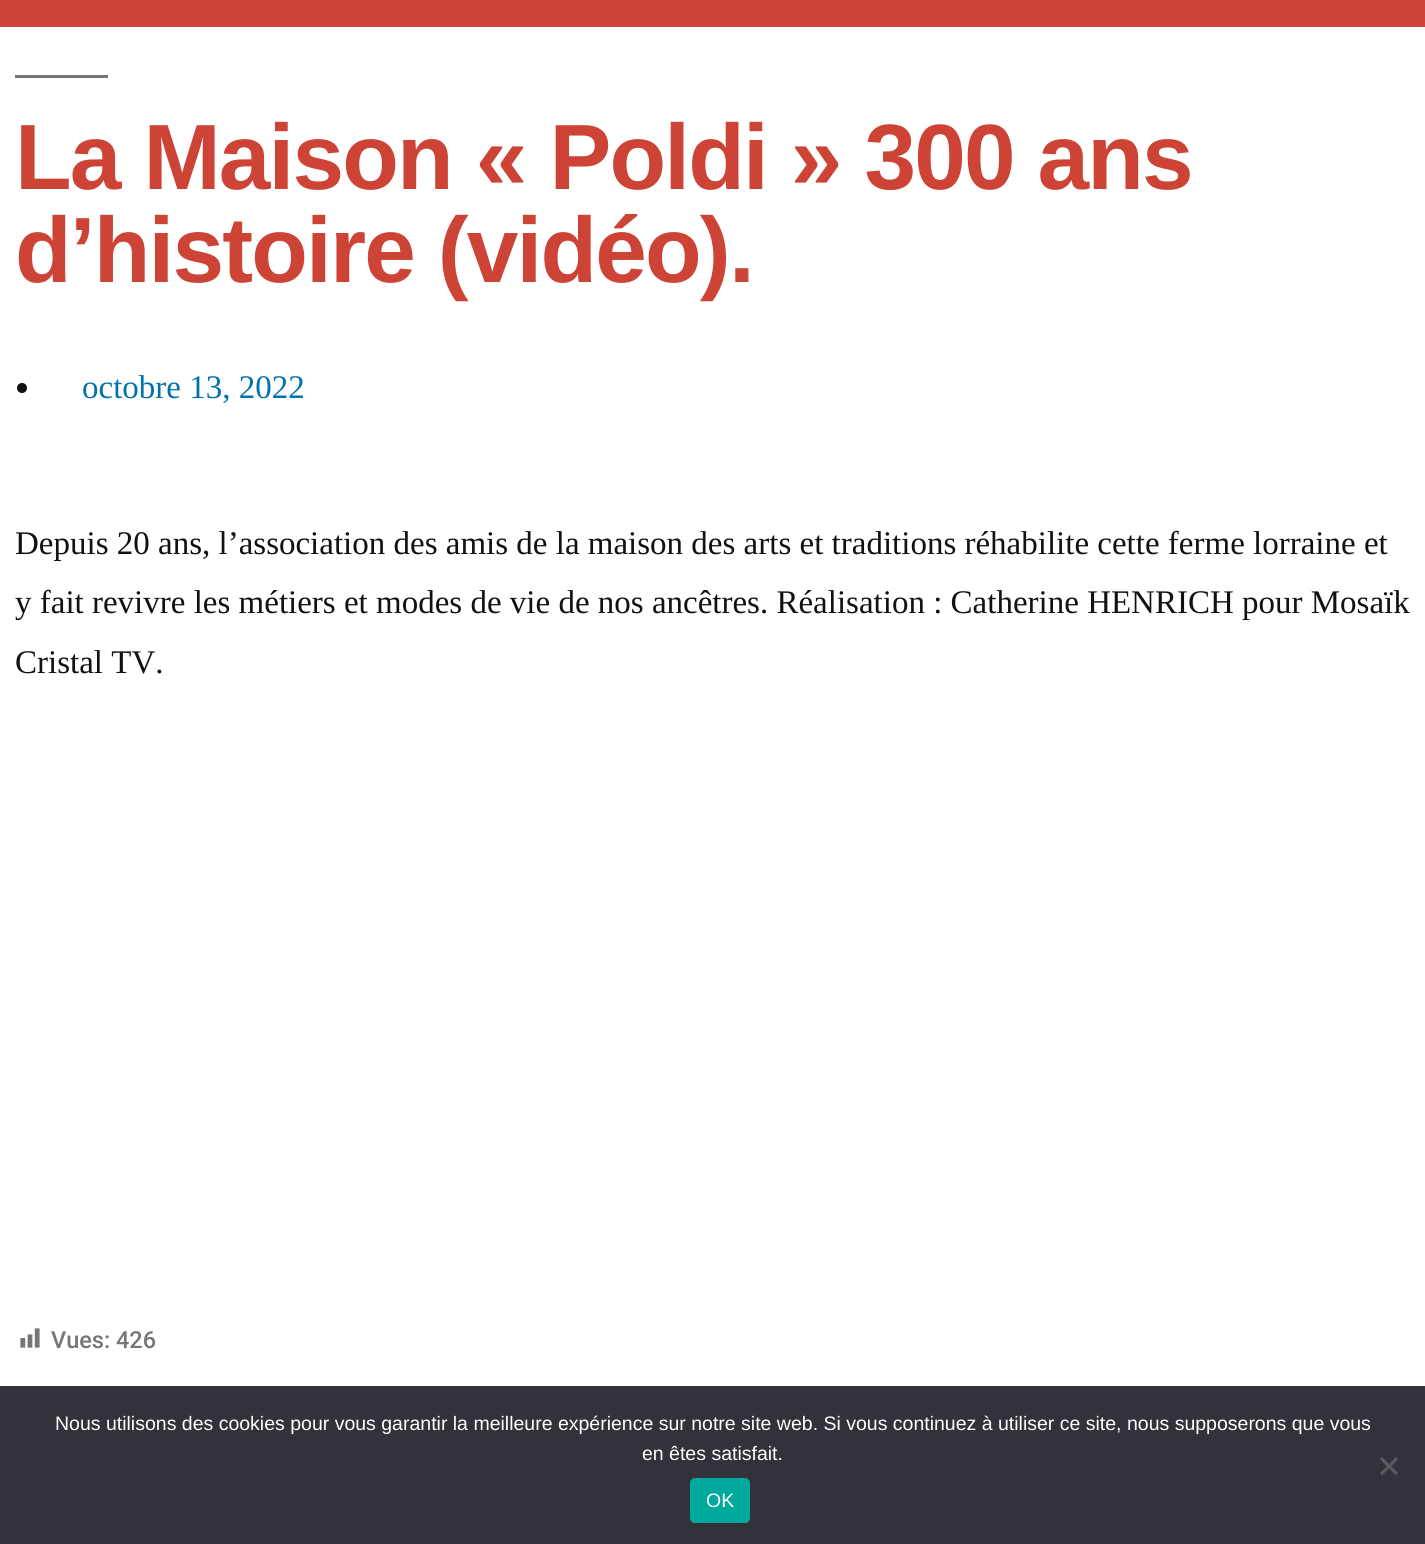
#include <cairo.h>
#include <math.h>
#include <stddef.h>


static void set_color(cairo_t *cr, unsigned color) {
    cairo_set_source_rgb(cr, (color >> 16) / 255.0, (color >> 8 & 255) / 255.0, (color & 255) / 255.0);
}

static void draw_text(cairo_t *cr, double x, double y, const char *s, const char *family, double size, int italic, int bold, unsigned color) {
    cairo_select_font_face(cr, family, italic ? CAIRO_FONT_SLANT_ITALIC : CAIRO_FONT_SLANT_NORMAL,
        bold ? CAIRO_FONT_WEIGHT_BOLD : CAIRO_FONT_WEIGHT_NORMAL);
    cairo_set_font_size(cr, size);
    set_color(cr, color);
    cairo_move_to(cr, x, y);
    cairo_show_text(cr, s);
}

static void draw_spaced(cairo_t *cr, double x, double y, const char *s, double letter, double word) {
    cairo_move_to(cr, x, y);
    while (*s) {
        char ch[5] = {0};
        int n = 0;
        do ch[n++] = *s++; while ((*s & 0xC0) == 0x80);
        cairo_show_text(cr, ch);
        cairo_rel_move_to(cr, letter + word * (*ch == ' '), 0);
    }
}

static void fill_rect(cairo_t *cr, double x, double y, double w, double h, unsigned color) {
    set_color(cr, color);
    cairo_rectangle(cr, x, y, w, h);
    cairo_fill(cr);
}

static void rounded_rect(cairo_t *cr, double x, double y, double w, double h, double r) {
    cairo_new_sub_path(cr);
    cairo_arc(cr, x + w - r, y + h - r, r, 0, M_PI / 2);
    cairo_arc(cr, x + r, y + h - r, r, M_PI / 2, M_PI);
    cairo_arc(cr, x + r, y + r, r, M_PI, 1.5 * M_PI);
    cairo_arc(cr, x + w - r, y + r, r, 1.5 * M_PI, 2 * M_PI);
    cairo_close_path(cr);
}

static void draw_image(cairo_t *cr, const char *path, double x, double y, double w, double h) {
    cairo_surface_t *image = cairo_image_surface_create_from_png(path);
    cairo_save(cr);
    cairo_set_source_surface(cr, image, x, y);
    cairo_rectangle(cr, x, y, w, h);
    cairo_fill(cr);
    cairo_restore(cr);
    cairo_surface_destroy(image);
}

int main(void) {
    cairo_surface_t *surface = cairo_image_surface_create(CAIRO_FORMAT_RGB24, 1425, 1544);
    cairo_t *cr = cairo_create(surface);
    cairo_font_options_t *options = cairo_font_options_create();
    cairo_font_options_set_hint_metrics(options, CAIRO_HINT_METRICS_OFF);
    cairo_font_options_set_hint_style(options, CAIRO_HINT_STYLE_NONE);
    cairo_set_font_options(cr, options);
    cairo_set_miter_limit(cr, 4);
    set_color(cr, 0xFFFFFF);
    cairo_paint(cr);
    fill_rect(cr, 0, 0, 1425, 27, 0xCD4335);
    fill_rect(cr, 15, 75, 93, 3, 0x767676);
    cairo_select_font_face(cr, "Liberation Sans", CAIRO_FONT_SLANT_NORMAL, CAIRO_FONT_WEIGHT_BOLD);
    cairo_set_font_size(cr, 92.75);
    set_color(cr, 0xCD4335);
    draw_spaced(cr, 15, 189, "La Maison « Poldi » 300 ans", -1.85, 0);
    draw_spaced(cr, 15, 282, "d’histoire (vidéo).", -1.85, 0);
    set_color(cr, 0x111111);
    cairo_new_path(cr);
    cairo_arc(cr, 22, 388, 5, 0, 2 * M_PI);
    cairo_fill(cr);
    draw_text(cr, 82, 398, "octobre 13, 2022", "Liberation Serif", 33, 0, 0, 0x0073AA);
    draw_text(cr, 15, 554, "Depuis 20 ans, l’association des amis de la maison des arts et traditions réhabilite cette ferme lorraine et", "Liberation Serif", 33, 0, 0, 0x111111);
    draw_text(cr, 15, 613, "y fait revivre les métiers et modes de vie de nos ancêtres. Réalisation : Catherine HENRICH pour Mosaïk", "Liberation Serif", 33, 0, 0, 0x111111);
    draw_text(cr, 15, 673, "Cristal TV.", "Liberation Serif", 33, 0, 0, 0x111111);
    draw_image(cr, "assets/img1.png", 20, 1328, 20, 20);
    draw_text(cr, 51, 1348, "Vues: 426", "Roboto Medium", 23.5, 0, 0, 0x767676);
    fill_rect(cr, 0, 1386, 1425, 158, 0x32323A);
    draw_text(cr, 55, 1430, "Nous utilisons des cookies pour vous garantir la meilleure expérience sur notre site web. Si vous continuez à utiliser ce site, nous supposerons que vous", "Liberation Sans", 19.5, 0, 0, 0xFFFFFF);
    draw_text(cr, 642, 1460, "en êtes satisfait.", "Liberation Sans", 19.5, 0, 0, 0xFFFFFF);
    set_color(cr, 0x59595D);
    cairo_new_path(cr);
    cairo_move_to(cr, 1396, 1457);
    cairo_line_to(cr, 1398, 1459.5);
    cairo_line_to(cr, 1382, 1475.5);
    cairo_line_to(cr, 1380, 1473);
    cairo_close_path(cr);
    cairo_fill(cr);
    cairo_new_path(cr);
    cairo_move_to(cr, 1380, 1459.5);
    cairo_line_to(cr, 1382, 1457);
    cairo_line_to(cr, 1398, 1473);
    cairo_line_to(cr, 1396, 1475.5);
    cairo_close_path(cr);
    cairo_fill(cr);
    set_color(cr, 0x00A99D);
    rounded_rect(cr, 690, 1478, 60, 45, 5);
    cairo_fill(cr);
    draw_text(cr, 706, 1507, "OK", "Liberation Sans", 19.5, 0, 0, 0xFFFFFF);
    cairo_surface_write_to_png(surface, "output.png");
    cairo_font_options_destroy(options);
    cairo_destroy(cr);
    cairo_surface_destroy(surface);
    return 0;
}
